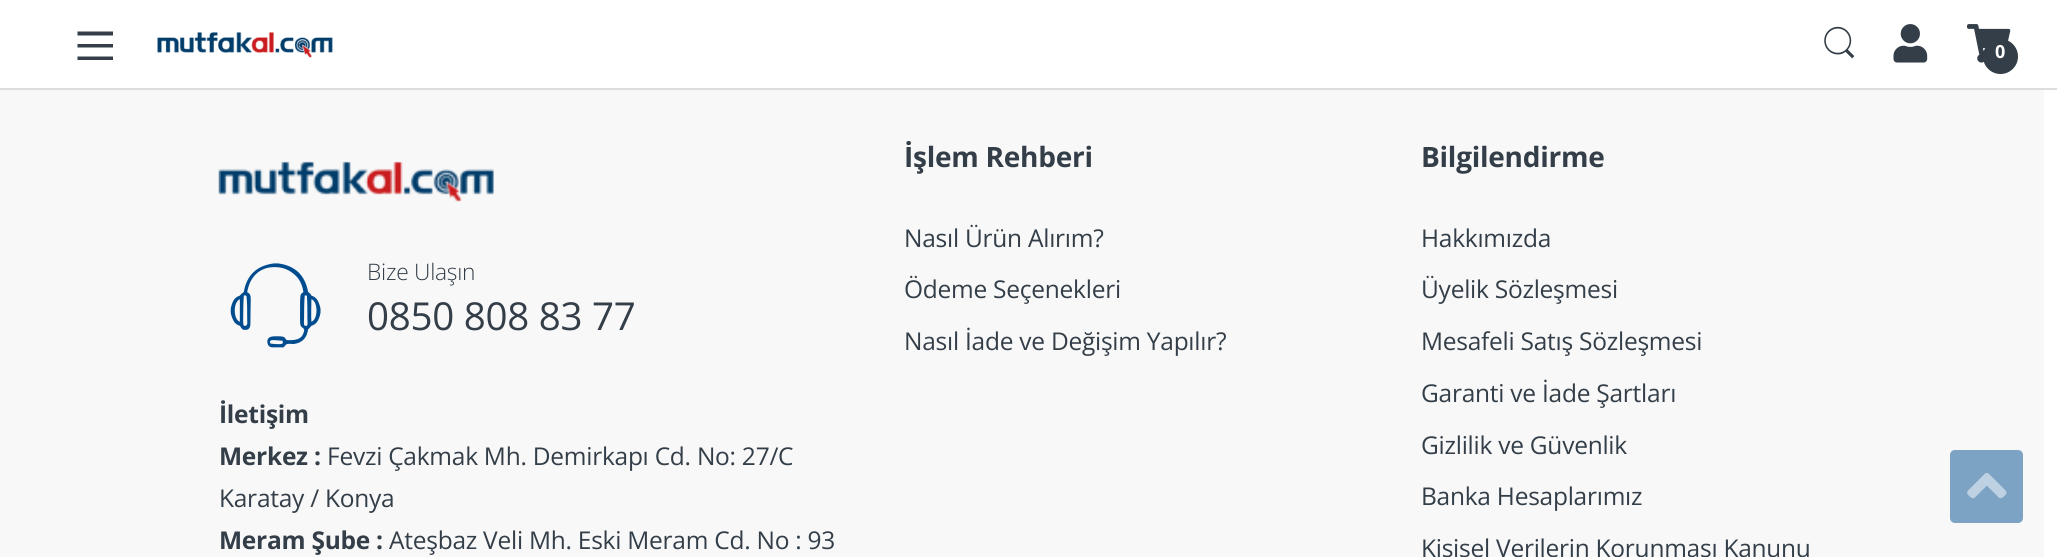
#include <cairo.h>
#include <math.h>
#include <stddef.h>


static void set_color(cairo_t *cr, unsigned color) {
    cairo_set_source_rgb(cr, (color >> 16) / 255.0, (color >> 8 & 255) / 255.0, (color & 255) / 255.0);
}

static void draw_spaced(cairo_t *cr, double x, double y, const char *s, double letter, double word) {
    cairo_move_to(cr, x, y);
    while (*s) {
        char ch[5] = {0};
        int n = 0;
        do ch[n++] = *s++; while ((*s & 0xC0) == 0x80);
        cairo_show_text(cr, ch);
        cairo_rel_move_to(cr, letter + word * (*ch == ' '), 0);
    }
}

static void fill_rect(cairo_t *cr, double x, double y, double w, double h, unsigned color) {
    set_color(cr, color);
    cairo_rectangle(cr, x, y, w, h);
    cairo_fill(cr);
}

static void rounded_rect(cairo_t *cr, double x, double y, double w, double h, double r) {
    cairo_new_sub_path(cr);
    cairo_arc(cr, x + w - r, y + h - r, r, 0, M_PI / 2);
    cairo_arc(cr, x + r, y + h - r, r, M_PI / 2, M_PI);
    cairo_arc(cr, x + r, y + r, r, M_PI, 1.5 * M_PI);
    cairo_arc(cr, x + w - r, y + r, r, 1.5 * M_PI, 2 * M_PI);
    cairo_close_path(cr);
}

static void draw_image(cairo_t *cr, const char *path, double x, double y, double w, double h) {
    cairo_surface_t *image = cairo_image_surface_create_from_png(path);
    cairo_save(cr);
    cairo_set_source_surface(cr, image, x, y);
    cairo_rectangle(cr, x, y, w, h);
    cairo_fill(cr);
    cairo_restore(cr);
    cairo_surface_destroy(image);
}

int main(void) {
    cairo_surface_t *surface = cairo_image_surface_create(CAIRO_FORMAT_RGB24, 2057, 557);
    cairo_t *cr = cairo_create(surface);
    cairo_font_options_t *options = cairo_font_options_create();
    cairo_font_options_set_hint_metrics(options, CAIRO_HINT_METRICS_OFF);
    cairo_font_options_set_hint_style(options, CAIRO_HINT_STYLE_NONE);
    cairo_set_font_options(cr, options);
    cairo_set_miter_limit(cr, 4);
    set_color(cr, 0xFFFFFF);
    cairo_paint(cr);
    fill_rect(cr, 0, 88, 2057, 2, 0xDDDDDD);
    set_color(cr, 0x333E48);
    cairo_new_path(cr);
    cairo_move_to(cr, 77.5, 60);
    cairo_line_to(cr, 77.5, 56.5);
    cairo_line_to(cr, 113, 56.5);
    cairo_line_to(cr, 113, 60);
    cairo_close_path(cr);
    cairo_move_to(cr, 77.5, 44);
    cairo_line_to(cr, 113, 44);
    cairo_line_to(cr, 113, 47.5);
    cairo_line_to(cr, 77.5, 47.5);
    cairo_close_path(cr);
    cairo_move_to(cr, 77.5, 31.5);
    cairo_line_to(cr, 113, 31.5);
    cairo_line_to(cr, 113, 35.5);
    cairo_line_to(cr, 77.5, 35.5);
    cairo_close_path(cr);
    cairo_fill(cr);
    draw_image(cr, "assets/img1.png", 157, 32, 176, 26);
    draw_image(cr, "assets/img2.png", 1824, 26, 31, 33);
    draw_image(cr, "assets/img3.png", 1893, 24, 35, 39);
    draw_image(cr, "assets/img4.png", 1967, 24, 44, 39);
    cairo_arc(cr, 2000.5, 56.5, 17.5, 0, 2 * M_PI);
    cairo_fill(cr);
    cairo_select_font_face(cr, "Open Sans", CAIRO_FONT_SLANT_NORMAL, CAIRO_FONT_WEIGHT_BOLD);
    cairo_set_font_size(cr, 18);
    set_color(cr, 0xFFFFFF);
    draw_spaced(cr, 1995, 58, "0", -0.25, 0);
    fill_rect(cr, 0, 90, 2044, 467, 0xF8F8F8);
    draw_image(cr, "assets/img5.png", 218, 161, 276, 41);
    draw_image(cr, "assets/img6.png", 230, 263, 91, 85);
    cairo_select_font_face(cr, "Open Sans Light", CAIRO_FONT_SLANT_NORMAL, CAIRO_FONT_WEIGHT_NORMAL);
    cairo_set_font_size(cr, 22.75);
    set_color(cr, 0x333E48);
    draw_spaced(cr, 367, 280, "Bize Ulaşın", -0.25, 0);
    cairo_select_font_face(cr, "Open Sans", CAIRO_FONT_SLANT_NORMAL, CAIRO_FONT_WEIGHT_NORMAL);
    cairo_set_font_size(cr, 38.5);
    draw_spaced(cr, 367, 330, "0850 808 83 77", -0.25, 0);
    cairo_select_font_face(cr, "Open Sans", CAIRO_FONT_SLANT_NORMAL, CAIRO_FONT_WEIGHT_BOLD);
    cairo_set_font_size(cr, 24.5);
    draw_spaced(cr, 219, 423, "İletişim", -0.25, 0);
    draw_spaced(cr, 219, 465, "Merkez :", -0.25, 0);
    cairo_select_font_face(cr, "Open Sans", CAIRO_FONT_SLANT_NORMAL, CAIRO_FONT_WEIGHT_NORMAL);
    draw_spaced(cr, 327, 465, "Fevzi Çakmak Mh. Demirkapı Cd. No: 27/C", -0.25, 0);
    draw_spaced(cr, 219, 507, "Karatay / Konya", -0.25, 0);
    cairo_select_font_face(cr, "Open Sans", CAIRO_FONT_SLANT_NORMAL, CAIRO_FONT_WEIGHT_BOLD);
    draw_spaced(cr, 219, 549, "Meram Şube :", -0.25, 0);
    cairo_select_font_face(cr, "Open Sans", CAIRO_FONT_SLANT_NORMAL, CAIRO_FONT_WEIGHT_NORMAL);
    draw_spaced(cr, 389, 549, "Ateşbaz Veli Mh. Eski Meram Cd. No : 93", -0.25, 0);
    cairo_select_font_face(cr, "Open Sans", CAIRO_FONT_SLANT_NORMAL, CAIRO_FONT_WEIGHT_BOLD);
    cairo_set_font_size(cr, 28);
    draw_spaced(cr, 904, 167, "İşlem Rehberi", -0.25, 0);
    cairo_select_font_face(cr, "Open Sans", CAIRO_FONT_SLANT_NORMAL, CAIRO_FONT_WEIGHT_NORMAL);
    cairo_set_font_size(cr, 24.5);
    draw_spaced(cr, 904, 247, "Nasıl Ürün Alırım?", -0.25, 0);
    draw_spaced(cr, 904, 298, "Ödeme Seçenekleri", -0.25, 0);
    draw_spaced(cr, 904, 350, "Nasıl İade ve Değişim Yapılır?", -0.25, 0);
    cairo_select_font_face(cr, "Open Sans", CAIRO_FONT_SLANT_NORMAL, CAIRO_FONT_WEIGHT_BOLD);
    cairo_set_font_size(cr, 28);
    draw_spaced(cr, 1421, 167, "Bilgilendirme", -0.25, 0);
    cairo_select_font_face(cr, "Open Sans", CAIRO_FONT_SLANT_NORMAL, CAIRO_FONT_WEIGHT_NORMAL);
    cairo_set_font_size(cr, 24.5);
    draw_spaced(cr, 1421, 247, "Hakkımızda", -0.25, 0);
    draw_spaced(cr, 1421, 298, "Üyelik Sözleşmesi", -0.25, 0);
    draw_spaced(cr, 1421, 350, "Mesafeli Satış Sözleşmesi", -0.25, 0);
    draw_spaced(cr, 1421, 402, "Garanti ve İade Şartları", -0.25, 0);
    draw_spaced(cr, 1421, 454, "Gizlilik ve Güvenlik", -0.25, 0);
    draw_spaced(cr, 1421, 505, "Banka Hesaplarımız", -0.25, 0);
    draw_spaced(cr, 1421, 557, "Kişisel Verilerin Korunması Kanunu", -0.25, 0);
    set_color(cr, 0x7CA2C4);
    rounded_rect(cr, 1950, 450, 73, 73, 5);
    cairo_fill(cr);
    draw_image(cr, "assets/img7.png", 1967, 473, 40, 26);
    cairo_surface_write_to_png(surface, "output.png");
    cairo_font_options_destroy(options);
    cairo_destroy(cr);
    cairo_surface_destroy(surface);
    return 0;
}
